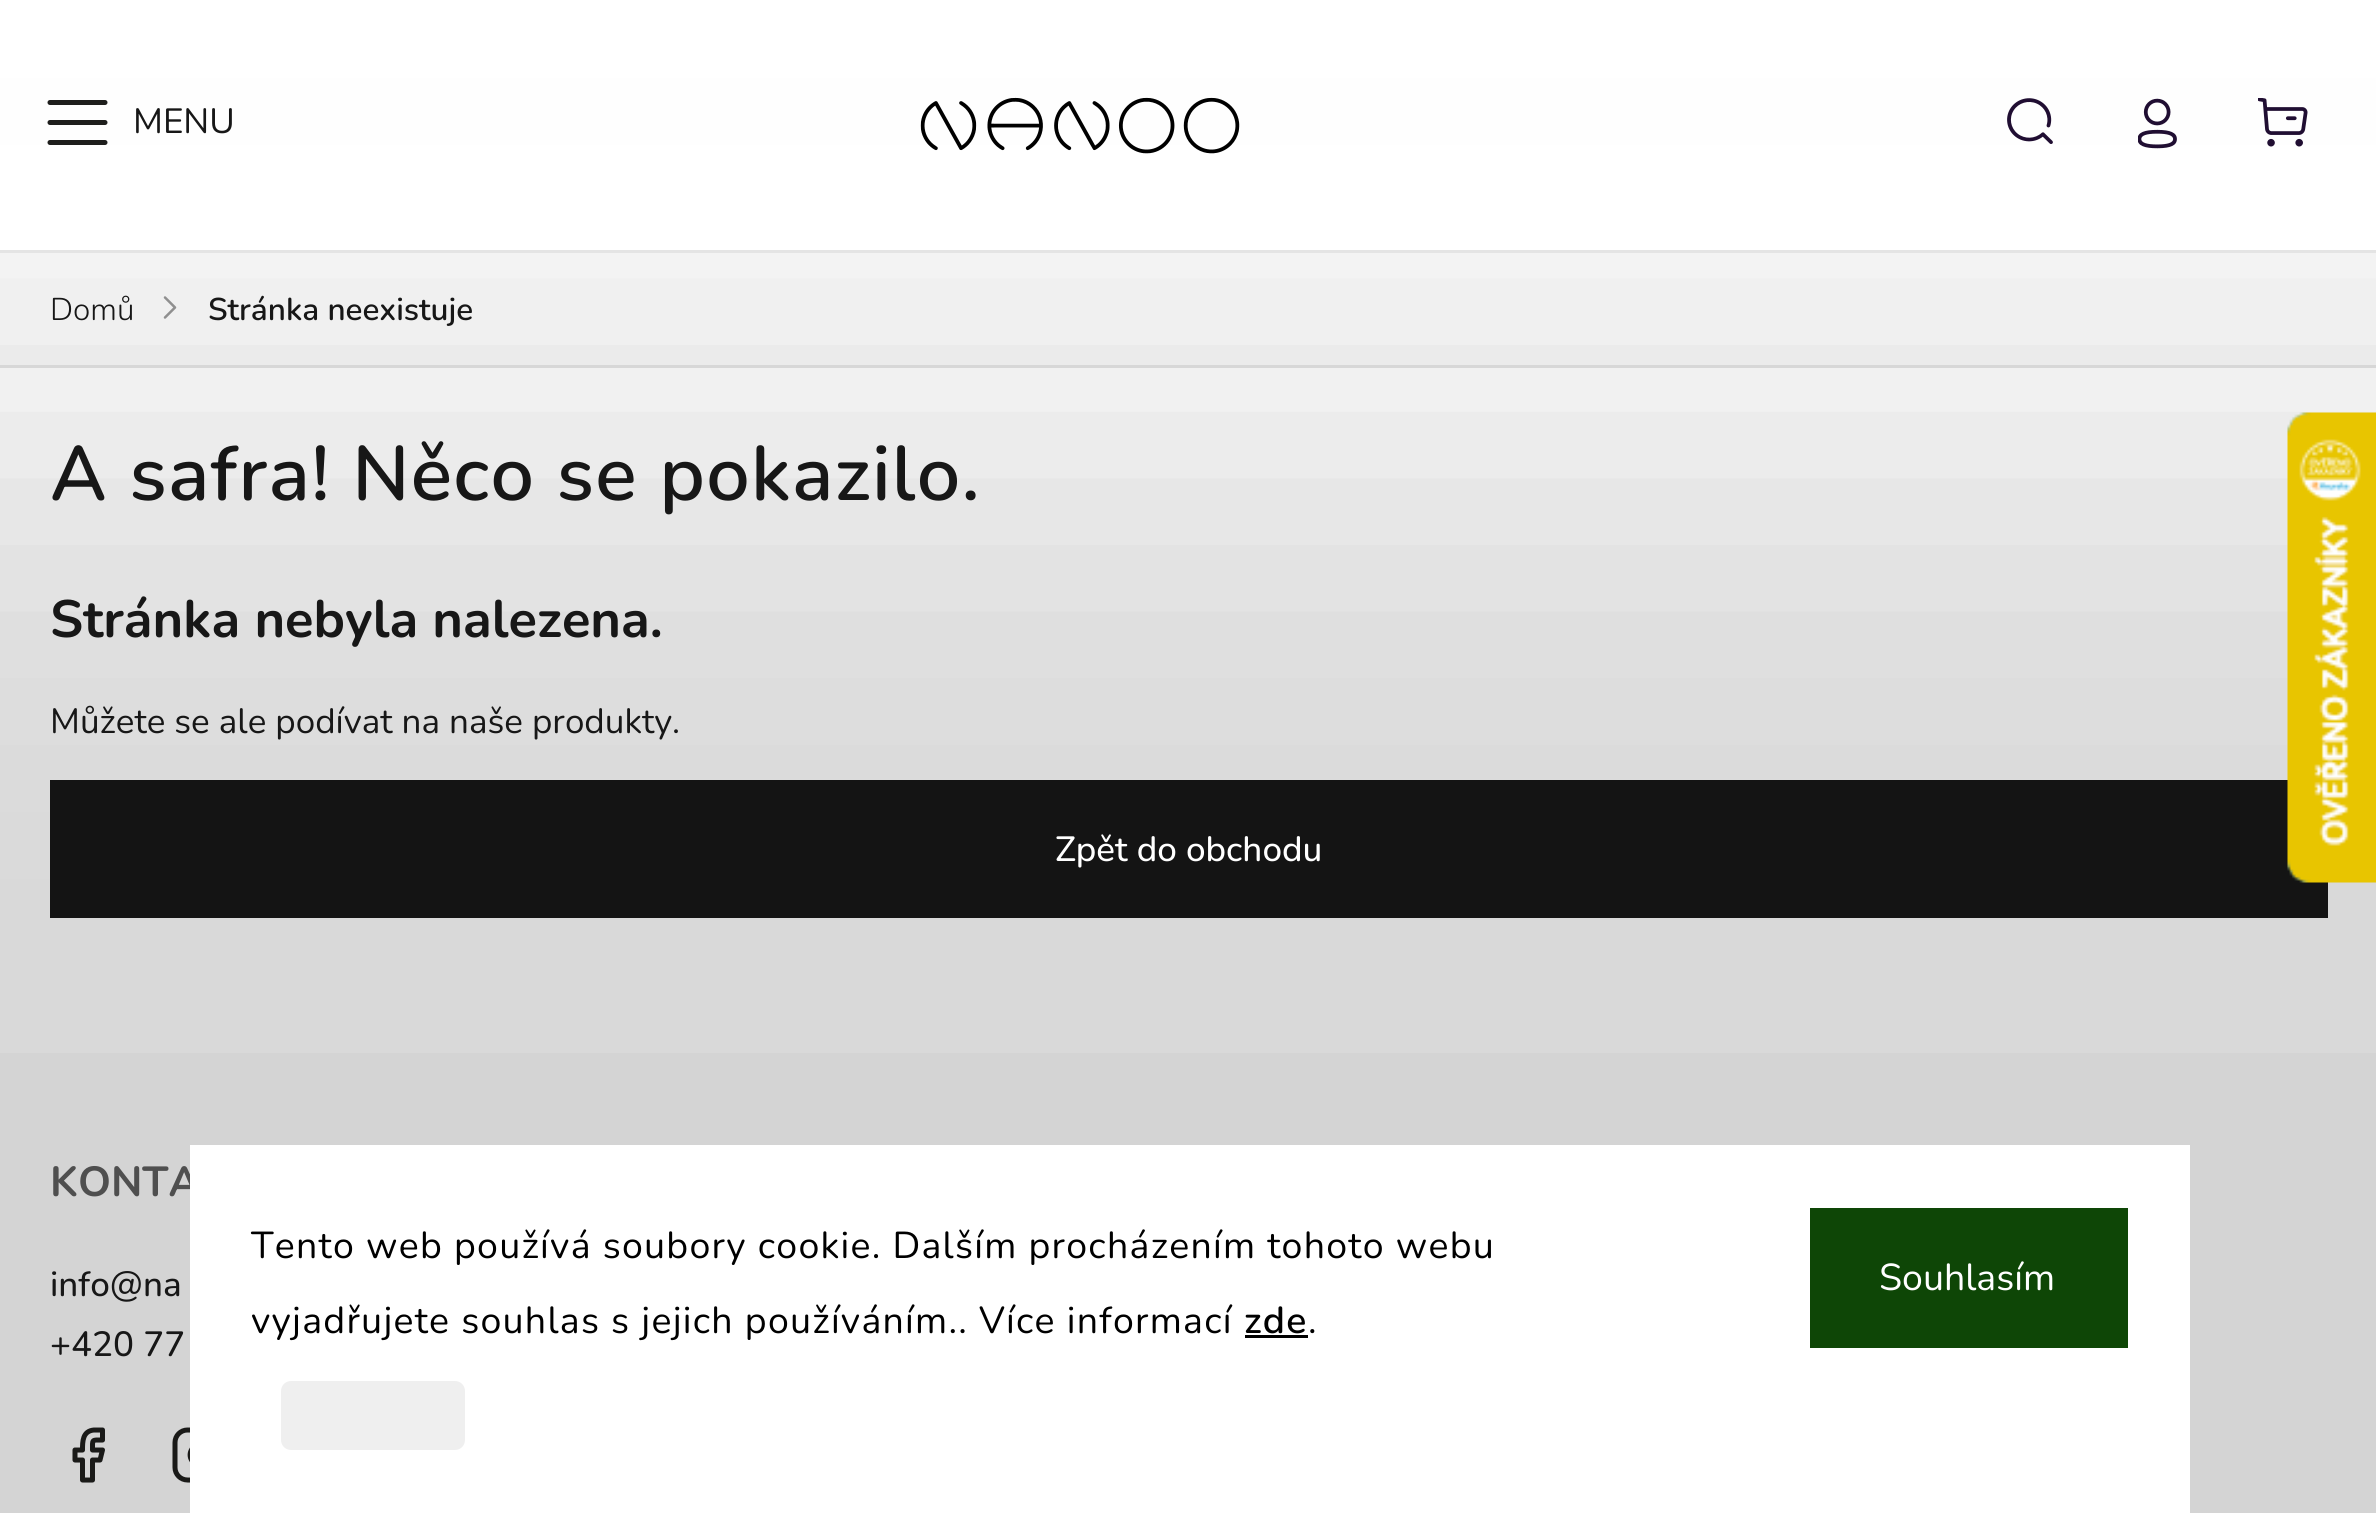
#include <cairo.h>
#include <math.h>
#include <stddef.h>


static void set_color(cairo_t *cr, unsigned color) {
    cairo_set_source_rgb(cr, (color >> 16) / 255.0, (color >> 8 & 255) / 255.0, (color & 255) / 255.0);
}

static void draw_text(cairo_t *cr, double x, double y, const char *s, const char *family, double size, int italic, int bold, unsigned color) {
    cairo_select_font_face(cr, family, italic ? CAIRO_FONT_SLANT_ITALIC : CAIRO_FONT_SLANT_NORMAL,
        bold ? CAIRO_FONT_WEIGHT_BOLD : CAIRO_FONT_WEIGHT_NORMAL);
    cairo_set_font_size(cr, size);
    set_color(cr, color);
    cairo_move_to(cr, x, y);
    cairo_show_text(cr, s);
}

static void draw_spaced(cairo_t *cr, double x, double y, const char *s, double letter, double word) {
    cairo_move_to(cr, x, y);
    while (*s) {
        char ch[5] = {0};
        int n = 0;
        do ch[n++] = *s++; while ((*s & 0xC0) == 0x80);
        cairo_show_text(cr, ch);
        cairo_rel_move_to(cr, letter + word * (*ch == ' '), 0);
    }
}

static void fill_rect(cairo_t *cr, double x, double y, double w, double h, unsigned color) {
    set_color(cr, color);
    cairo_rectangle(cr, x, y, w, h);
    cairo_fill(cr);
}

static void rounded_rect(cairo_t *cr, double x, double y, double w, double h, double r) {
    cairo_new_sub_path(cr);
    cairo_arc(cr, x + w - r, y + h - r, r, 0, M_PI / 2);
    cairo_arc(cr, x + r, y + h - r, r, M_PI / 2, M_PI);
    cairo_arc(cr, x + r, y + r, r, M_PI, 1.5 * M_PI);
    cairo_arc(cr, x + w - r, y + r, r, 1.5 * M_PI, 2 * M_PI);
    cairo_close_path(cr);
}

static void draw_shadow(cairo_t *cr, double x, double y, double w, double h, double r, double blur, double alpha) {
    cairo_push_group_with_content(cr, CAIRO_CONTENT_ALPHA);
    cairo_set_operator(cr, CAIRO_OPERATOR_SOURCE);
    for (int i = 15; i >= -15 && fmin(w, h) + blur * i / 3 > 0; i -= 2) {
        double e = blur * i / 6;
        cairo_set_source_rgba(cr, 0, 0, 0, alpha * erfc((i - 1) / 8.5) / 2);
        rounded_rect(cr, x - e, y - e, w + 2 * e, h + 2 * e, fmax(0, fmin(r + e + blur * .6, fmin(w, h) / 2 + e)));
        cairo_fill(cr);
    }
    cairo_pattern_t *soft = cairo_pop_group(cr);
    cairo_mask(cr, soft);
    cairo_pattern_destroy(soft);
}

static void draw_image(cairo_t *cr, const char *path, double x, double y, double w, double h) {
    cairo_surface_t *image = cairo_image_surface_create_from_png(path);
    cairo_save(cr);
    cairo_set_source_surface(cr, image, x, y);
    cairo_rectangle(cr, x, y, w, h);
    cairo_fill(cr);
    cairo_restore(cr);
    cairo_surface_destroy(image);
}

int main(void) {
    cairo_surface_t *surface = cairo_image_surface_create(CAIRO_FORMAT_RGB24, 2376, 1513);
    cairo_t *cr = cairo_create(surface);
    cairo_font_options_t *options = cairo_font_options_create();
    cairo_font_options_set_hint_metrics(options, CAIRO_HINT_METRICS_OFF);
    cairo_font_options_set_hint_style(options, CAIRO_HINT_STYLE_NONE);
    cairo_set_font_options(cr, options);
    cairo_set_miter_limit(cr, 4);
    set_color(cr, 0xFFFFFF);
    cairo_paint(cr);
    fill_rect(cr, 0, 253, 2376, 112, 0xF9F9F9);
    fill_rect(cr, 0, 365, 2376, 3, 0xE4E4E4);
    cairo_new_path(cr);
    cairo_move_to(cr, 165, 317.5);
    cairo_line_to(cr, 175, 307.5);
    cairo_line_to(cr, 165, 297.5);
    set_color(cr, 0x949494);
    cairo_set_line_width(cr, 2.5);
    cairo_set_line_cap(cr, CAIRO_LINE_CAP_ROUND);
    cairo_set_line_join(cr, CAIRO_LINE_JOIN_ROUND);
    cairo_stroke(cr);
    fill_rect(cr, 50, 780, 2278, 138, 0x171717);
    fill_rect(cr, 0, 1053, 2376, 460, 0xF9F9F9);
    cairo_new_path(cr);
    cairo_move_to(cr, 102.5, 1430);
    cairo_line_to(cr, 94, 1430);
    cairo_curve_to(cr, 82.5, 1431, 82.5, 1441.5, 82.5, 1450);
    cairo_line_to(cr, 75, 1450);
    cairo_line_to(cr, 75, 1460);
    cairo_line_to(cr, 82.5, 1460);
    cairo_line_to(cr, 82.5, 1480);
    cairo_line_to(cr, 92.5, 1480);
    cairo_line_to(cr, 92.5, 1460);
    cairo_line_to(cr, 100, 1460);
    cairo_line_to(cr, 102.5, 1450);
    cairo_line_to(cr, 92.5, 1450);
    cairo_curve_to(cr, 92.5, 1439, 91.5, 1440, 102.5, 1440);
    cairo_close_path(cr);
    set_color(cr, 0x1E1E1C);
    cairo_set_line_width(cr, 5);
    cairo_stroke(cr);
    draw_image(cr, "assets/img5.png", 172, 1427, 18, 56);
    set_color(cr, 0x000000);
    draw_shadow(cr, -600, 445, 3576, 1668, 0, 200, 0.15);
    fill_rect(cr, 0, 145, 2376, 105, 0xFFFFFF);
    fill_rect(cr, 0, 250, 2376, 3, 0xE4E4E4);
    cairo_new_path(cr);
    cairo_move_to(cr, 50, 122.5);
    cairo_line_to(cr, 105, 122.5);
    cairo_move_to(cr, 50, 102.5);
    cairo_line_to(cr, 105, 102.5);
    cairo_move_to(cr, 50, 142.5);
    cairo_line_to(cr, 105, 142.5);
    set_color(cr, 0x1E1E1C);
    cairo_stroke(cr);
    draw_text(cr, 133, 133, "MENU", "Nunito", 35, 0, 0, 0x171717);
    draw_image(cr, "assets/img1.png", 920, 97, 320, 57);
    draw_image(cr, "assets/img2.png", 2007, 98, 46, 46);
    draw_image(cr, "assets/img3.png", 2138, 98, 39, 51);
    draw_image(cr, "assets/img4.png", 2258, 98, 50, 49);
    draw_text(cr, 50, 320, "Domů", "Nunito Light", 31.5, 0, 0, 0x171717);
    draw_text(cr, 208, 320, "Stránka neexistuje", "Nunito SemiBold", 31.5, 0, 0, 0x171717);
    cairo_set_font_size(cr, 77);
    draw_spaced(cr, 50, 500, "A safra! Něco se pokazilo.", 1.25, 0);
    draw_text(cr, 50, 637, "Stránka nebyla nalezena.", "Nunito", 52.5, 0, 1, 0x171717);
    draw_text(cr, 50, 733, "Můžete se ale podívat na naše produkty.", "Nunito", 35, 0, 0, 0x171717);
    draw_text(cr, 1055, 861, "Zpět do obchodu", "Nunito Medium", 35, 0, 0, 0xFFFFFF);
    draw_text(cr, 50, 1196, "KONTA", "Nunito", 42, 0, 1, 0x4F4F4F);
    draw_text(cr, 50, 1296, "info@na", "Nunito Medium", 35, 0, 0, 0x171717);
    draw_text(cr, 50, 1356, "+420 77", "Nunito Medium", 35, 0, 0, 0x171717);
    draw_image(cr, "assets/img6.png", 2287, 412, 89, 471);
    fill_rect(cr, 190, 1145, 2000, 368, 0xFFFFFF);
    cairo_select_font_face(cr, "Nunito", CAIRO_FONT_SLANT_NORMAL, CAIRO_FONT_WEIGHT_NORMAL);
    cairo_set_font_size(cr, 37.5);
    set_color(cr, 0x000000);
    draw_spaced(cr, 251, 1258, "Tento web používá soubory cookie. Dalším procházením tohoto webu", 1.25, 0);
    draw_spaced(cr, 251, 1333, "vyjadřujete souhlas s jejich používáním.. Více informací", 1.25, 0);
    cairo_select_font_face(cr, "Nunito SemiBold", CAIRO_FONT_SLANT_NORMAL, CAIRO_FONT_WEIGHT_NORMAL);
    draw_spaced(cr, 1244, 1333, "zde", 1.25, 0);
    fill_rect(cr, 1245, 1335, 63, 3, 0x000000);
    cairo_select_font_face(cr, "Nunito", CAIRO_FONT_SLANT_NORMAL, CAIRO_FONT_WEIGHT_NORMAL);
    draw_spaced(cr, 1308, 1333, ".", 1.25, 0);
    set_color(cr, 0xEFEFEF);
    rounded_rect(cr, 279.5, 1379.5, 187, 72, 11.5);
    cairo_fill_preserve(cr);
    set_color(cr, 0xFFFFFF);
    cairo_set_line_width(cr, 3);
    cairo_set_line_cap(cr, CAIRO_LINE_CAP_BUTT);
    cairo_set_line_join(cr, CAIRO_LINE_JOIN_MITER);
    cairo_stroke(cr);
    fill_rect(cr, 1810, 1208, 318, 140, 0x0E4606);
    draw_text(cr, 1879, 1290, "Souhlasím", "Nunito", 37.5, 0, 0, 0xFFFFFF);
    cairo_surface_write_to_png(surface, "output.png");
    cairo_font_options_destroy(options);
    cairo_destroy(cr);
    cairo_surface_destroy(surface);
    return 0;
}
